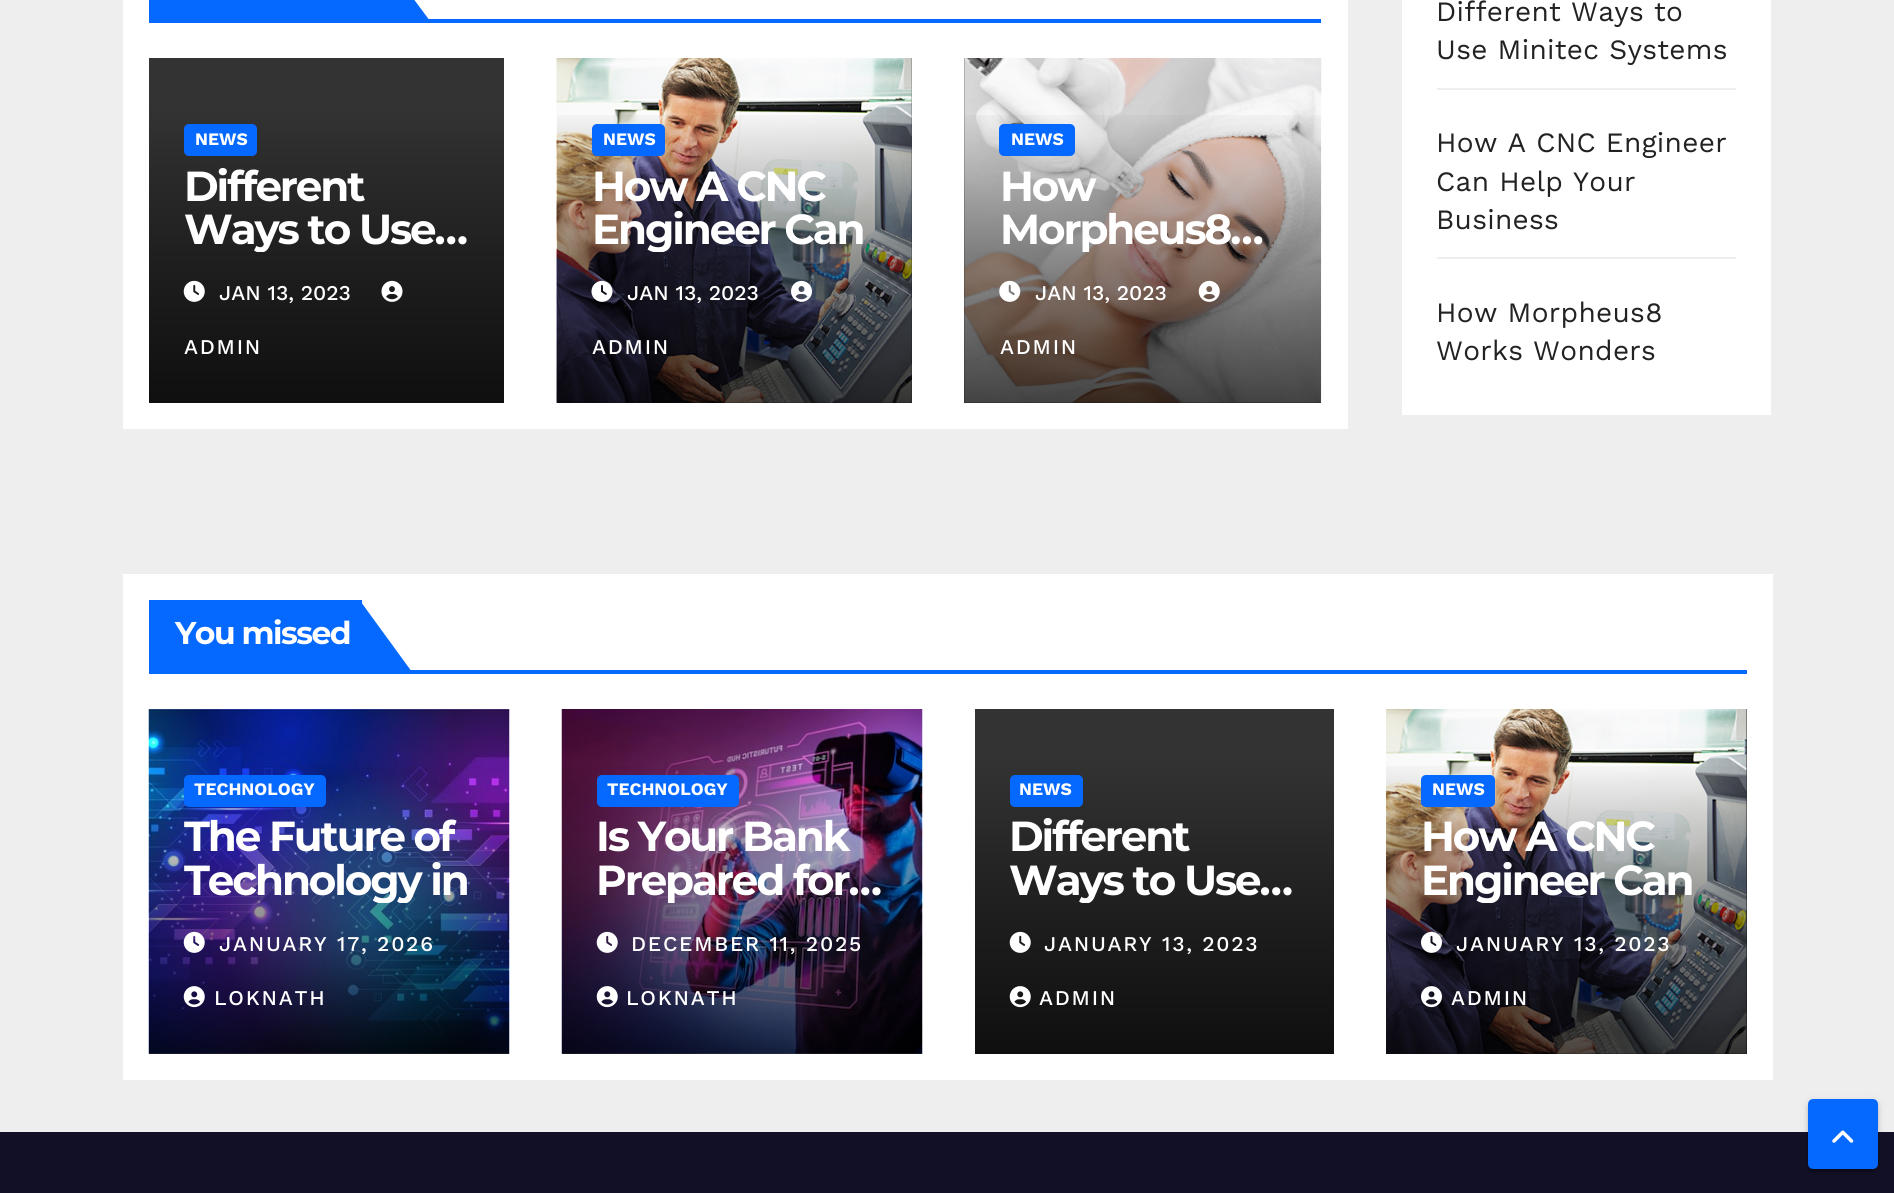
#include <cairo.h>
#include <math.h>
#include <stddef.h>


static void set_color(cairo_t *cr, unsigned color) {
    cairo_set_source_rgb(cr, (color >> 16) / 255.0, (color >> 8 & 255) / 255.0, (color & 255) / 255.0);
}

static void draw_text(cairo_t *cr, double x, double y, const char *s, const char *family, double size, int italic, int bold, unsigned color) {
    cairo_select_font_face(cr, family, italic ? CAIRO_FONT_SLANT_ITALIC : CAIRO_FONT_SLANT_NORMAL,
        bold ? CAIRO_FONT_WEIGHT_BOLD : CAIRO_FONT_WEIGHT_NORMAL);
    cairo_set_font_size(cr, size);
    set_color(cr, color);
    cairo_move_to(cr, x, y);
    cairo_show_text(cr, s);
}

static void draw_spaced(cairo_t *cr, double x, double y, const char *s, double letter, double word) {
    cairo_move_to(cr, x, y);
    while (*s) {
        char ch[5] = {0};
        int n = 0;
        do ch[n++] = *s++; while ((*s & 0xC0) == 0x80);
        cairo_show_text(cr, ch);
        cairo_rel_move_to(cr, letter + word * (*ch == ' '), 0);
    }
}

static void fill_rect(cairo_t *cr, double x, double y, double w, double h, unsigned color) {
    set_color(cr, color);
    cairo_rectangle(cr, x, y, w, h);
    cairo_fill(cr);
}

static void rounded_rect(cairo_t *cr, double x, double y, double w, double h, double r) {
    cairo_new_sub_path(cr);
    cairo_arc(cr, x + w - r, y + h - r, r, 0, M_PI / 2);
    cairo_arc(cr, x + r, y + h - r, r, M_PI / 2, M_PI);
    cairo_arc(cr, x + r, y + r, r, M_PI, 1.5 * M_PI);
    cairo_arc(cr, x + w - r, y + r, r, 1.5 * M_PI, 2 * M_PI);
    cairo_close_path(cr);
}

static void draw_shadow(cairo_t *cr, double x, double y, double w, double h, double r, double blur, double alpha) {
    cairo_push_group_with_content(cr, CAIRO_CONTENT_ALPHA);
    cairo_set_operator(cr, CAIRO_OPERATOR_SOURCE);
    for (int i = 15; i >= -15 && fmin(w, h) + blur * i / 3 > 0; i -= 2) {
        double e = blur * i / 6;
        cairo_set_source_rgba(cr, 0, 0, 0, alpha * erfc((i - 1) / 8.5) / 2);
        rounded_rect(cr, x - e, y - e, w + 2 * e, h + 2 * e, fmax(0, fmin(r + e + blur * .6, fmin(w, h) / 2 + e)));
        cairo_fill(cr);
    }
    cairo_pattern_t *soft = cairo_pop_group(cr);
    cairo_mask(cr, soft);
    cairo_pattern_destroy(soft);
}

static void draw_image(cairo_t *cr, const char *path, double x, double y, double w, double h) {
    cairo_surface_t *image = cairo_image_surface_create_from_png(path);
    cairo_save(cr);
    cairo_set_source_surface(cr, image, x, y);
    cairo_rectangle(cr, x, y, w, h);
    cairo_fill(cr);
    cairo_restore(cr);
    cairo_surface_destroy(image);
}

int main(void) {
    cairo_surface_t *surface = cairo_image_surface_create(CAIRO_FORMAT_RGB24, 1894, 1193);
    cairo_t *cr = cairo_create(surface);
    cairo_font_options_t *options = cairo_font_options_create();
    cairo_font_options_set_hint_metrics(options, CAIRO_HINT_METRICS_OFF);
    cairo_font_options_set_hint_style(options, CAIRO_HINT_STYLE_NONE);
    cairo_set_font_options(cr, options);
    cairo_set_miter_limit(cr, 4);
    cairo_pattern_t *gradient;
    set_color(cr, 0xEEEEEE);
    cairo_paint(cr);
    fill_rect(cr, 123, 0, 1225, 429, 0xFFFFFF);
    fill_rect(cr, 149, 19, 1172, 4, 0x0669FF);
    fill_rect(cr, 149, 0, 229, 19, 0x0669FF);
    cairo_new_path(cr);
    cairo_move_to(cr, 430, 21);
    cairo_line_to(cr, 378, 21);
    cairo_line_to(cr, 378, -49);
    cairo_close_path(cr);
    cairo_fill(cr);
    fill_rect(cr, 149, 58, 355, 49, 0x333333);
    gradient = cairo_pattern_create_linear(326, 107, 326, 403);
    cairo_pattern_add_color_stop_rgba(gradient, 0, 0.2, 0.2, 0.2, 1);
    cairo_pattern_add_color_stop_rgba(gradient, 0.5, 0.122, 0.122, 0.122, 1);
    cairo_pattern_add_color_stop_rgba(gradient, 1, 0.059, 0.059, 0.059, 1);
    cairo_set_source(cr, gradient);
    cairo_pattern_destroy(gradient);
    cairo_rectangle(cr, 149, 107, 355, 296);
    cairo_fill(cr);
    set_color(cr, 0x0669FF);
    rounded_rect(cr, 184, 124, 73, 32, 5);
    cairo_fill(cr);
    draw_text(cr, 195, 145, "NEWS", "Work Sans", 17.5, 0, 1, 0xFFFFFF);
    cairo_select_font_face(cr, "Montserrat", CAIRO_FONT_SLANT_NORMAL, CAIRO_FONT_WEIGHT_BOLD);
    cairo_set_font_size(cr, 42);
    draw_spaced(cr, 184, 201, "Different", -2.1, 0);
    cairo_save(cr);
    cairo_rectangle(cr, 184, 165, 285, 87);
    cairo_clip(cr);
    draw_spaced(cr, 184, 244, "Ways to Use…", -2.1, 0);
    cairo_restore(cr);
    draw_image(cr, "assets/img1.png", 183, 280, 22, 22);
    draw_text(cr, 219, 300, "JAN 13, 2023", "Work Sans Medium", 21, 0, 0, 0xFFFFFF);
    draw_image(cr, "assets/img2.png", 381, 280, 22, 22);
    draw_spaced(cr, 184, 354, "ADMIN", 1.75, 0);
    fill_rect(cr, 557, 58, 355, 345, 0x333333);
    draw_image(cr, "assets/img3.png", 556, 58, 356, 345);
    gradient = cairo_pattern_create_linear(734, 107, 734, 403);
    cairo_pattern_add_color_stop_rgba(gradient, 0, 0, 0, 0, 0);
    cairo_pattern_add_color_stop_rgba(gradient, 0.5, 0, 0, 0, 0.4);
    cairo_pattern_add_color_stop_rgba(gradient, 1, 0, 0, 0, 0.7);
    cairo_set_source(cr, gradient);
    cairo_pattern_destroy(gradient);
    cairo_rectangle(cr, 557, 115, 355, 288);
    cairo_fill(cr);
    set_color(cr, 0x0669FF);
    rounded_rect(cr, 592, 124, 73, 32, 5);
    cairo_fill(cr);
    draw_text(cr, 603, 145, "NEWS", "Work Sans", 17.5, 0, 1, 0xFFFFFF);
    cairo_select_font_face(cr, "Montserrat", CAIRO_FONT_SLANT_NORMAL, CAIRO_FONT_WEIGHT_BOLD);
    cairo_set_font_size(cr, 42);
    draw_spaced(cr, 592, 201, "How A CNC", -2.1, 0);
    cairo_save(cr);
    cairo_rectangle(cr, 592, 165, 285, 87);
    cairo_clip(cr);
    draw_spaced(cr, 592, 244, "Engineer Can", -2.1, 0);
    cairo_restore(cr);
    draw_image(cr, "assets/img4.png", 591, 280, 22, 22);
    draw_text(cr, 627, 300, "JAN 13, 2023", "Work Sans Medium", 21, 0, 0, 0xFFFFFF);
    draw_image(cr, "assets/img5.png", 791, 280, 21, 22);
    draw_spaced(cr, 592, 354, "ADMIN", 1.75, 0);
    fill_rect(cr, 964, 58, 357, 345, 0x333333);
    draw_image(cr, "assets/img6.png", 964, 58, 358, 345);
    gradient = cairo_pattern_create_linear(1143, 107, 1143, 403);
    cairo_pattern_add_color_stop_rgba(gradient, 0, 0, 0, 0, 0);
    cairo_pattern_add_color_stop_rgba(gradient, 0.5, 0, 0, 0, 0.4);
    cairo_pattern_add_color_stop_rgba(gradient, 1, 0, 0, 0, 0.7);
    cairo_set_source(cr, gradient);
    cairo_pattern_destroy(gradient);
    cairo_rectangle(cr, 964, 115, 357, 288);
    cairo_fill(cr);
    set_color(cr, 0x0669FF);
    rounded_rect(cr, 999, 124, 76, 32, 5);
    cairo_fill(cr);
    draw_text(cr, 1011, 145, "NEWS", "Work Sans", 17.5, 0, 1, 0xFFFFFF);
    cairo_select_font_face(cr, "Montserrat", CAIRO_FONT_SLANT_NORMAL, CAIRO_FONT_WEIGHT_BOLD);
    cairo_set_font_size(cr, 42);
    draw_spaced(cr, 1000, 201, "How", -2.1, 0);
    cairo_save(cr);
    cairo_rectangle(cr, 999, 165, 287, 87);
    cairo_clip(cr);
    draw_spaced(cr, 1000, 244, "Morpheus8…", -2.1, 0);
    cairo_restore(cr);
    draw_image(cr, "assets/img7.png", 999, 280, 22, 22);
    draw_text(cr, 1035, 300, "JAN 13, 2023", "Work Sans Medium", 21, 0, 0, 0xFFFFFF);
    draw_image(cr, "assets/img8.png", 1198, 280, 22, 22);
    draw_spaced(cr, 1000, 354, "ADMIN", 1.75, 0);
    fill_rect(cr, 1402, 0, 369, 415, 0xFFFFFF);
    fill_rect(cr, 1437, 88, 299, 2, 0xEEEEEE);
    cairo_select_font_face(cr, "Work Sans", CAIRO_FONT_SLANT_NORMAL, CAIRO_FONT_WEIGHT_NORMAL);
    cairo_set_font_size(cr, 28);
    set_color(cr, 0x222222);
    draw_spaced(cr, 1436, 21, "Different Ways to", 0.3, 0);
    draw_spaced(cr, 1436, 59, "Use Minitec Systems", 0.3, 0);
    fill_rect(cr, 1437, 257, 299, 2, 0xEEEEEE);
    set_color(cr, 0x222222);
    draw_spaced(cr, 1436, 152, "How A CNC Engineer", 0.3, 0);
    draw_spaced(cr, 1436, 191, "Can Help Your", 0.3, 0);
    draw_spaced(cr, 1436, 229, "Business", 0.3, 0);
    draw_spaced(cr, 1436, 322, "How Morpheus8", 0.3, 0);
    draw_spaced(cr, 1436, 360, "Works Wonders", 0.3, 0);
    fill_rect(cr, 123, 574, 1650, 506, 0xFFFFFF);
    fill_rect(cr, 149, 670, 1598, 4, 0x0669FF);
    fill_rect(cr, 149, 600, 213, 70, 0x0669FF);
    cairo_select_font_face(cr, "Montserrat", CAIRO_FONT_SLANT_NORMAL, CAIRO_FONT_WEIGHT_BOLD);
    cairo_set_font_size(cr, 31.5);
    set_color(cr, 0xFFFFFF);
    draw_spaced(cr, 175, 644, "You missed", -1.5, 0);
    set_color(cr, 0x0669FF);
    cairo_new_path(cr);
    cairo_move_to(cr, 412, 672);
    cairo_line_to(cr, 361, 672);
    cairo_line_to(cr, 361, 602);
    cairo_close_path(cr);
    cairo_fill(cr);
    draw_image(cr, "assets/img9.png", 148, 709, 362, 345);
    gradient = cairo_pattern_create_linear(329, 758, 329, 1054);
    cairo_pattern_add_color_stop_rgba(gradient, 0, 0, 0, 0, 0);
    cairo_pattern_add_color_stop_rgba(gradient, 0.5, 0, 0, 0, 0.4);
    cairo_pattern_add_color_stop_rgba(gradient, 1, 0, 0, 0, 0.7);
    cairo_set_source(cr, gradient);
    cairo_pattern_destroy(gradient);
    cairo_rectangle(cr, 149, 766, 360, 288);
    cairo_fill(cr);
    set_color(cr, 0x0669FF);
    rounded_rect(cr, 184, 775, 142, 32, 5);
    cairo_fill(cr);
    draw_text(cr, 194, 795, "TECHNOLOGY", "Work Sans", 17.5, 0, 1, 0xFFFFFF);
    cairo_save(cr);
    cairo_rectangle(cr, 184, 816, 290, 87);
    cairo_clip(cr);
    cairo_select_font_face(cr, "Montserrat", CAIRO_FONT_SLANT_NORMAL, CAIRO_FONT_WEIGHT_BOLD);
    cairo_set_font_size(cr, 42);
    draw_spaced(cr, 184, 851, "The Future of", -2.1, 0);
    draw_spaced(cr, 184, 895, "Technology in", -2.1, 0);
    cairo_restore(cr);
    draw_image(cr, "assets/img10.png", 183, 931, 22, 22);
    cairo_select_font_face(cr, "Work Sans Medium", CAIRO_FONT_SLANT_NORMAL, CAIRO_FONT_WEIGHT_NORMAL);
    cairo_set_font_size(cr, 21);
    draw_spaced(cr, 219, 951, "JANUARY 17, 2026", 1.75, 0);
    draw_image(cr, "assets/img11.png", 183, 986, 22, 22);
    draw_spaced(cr, 214, 1005, "LOKNATH", 1.75, 0);
    draw_image(cr, "assets/img12.png", 561, 709, 362, 345);
    gradient = cairo_pattern_create_linear(742, 758, 742, 1054);
    cairo_pattern_add_color_stop_rgba(gradient, 0, 0, 0, 0, 0);
    cairo_pattern_add_color_stop_rgba(gradient, 0.5, 0, 0, 0, 0.4);
    cairo_pattern_add_color_stop_rgba(gradient, 1, 0, 0, 0, 0.7);
    cairo_set_source(cr, gradient);
    cairo_pattern_destroy(gradient);
    cairo_rectangle(cr, 562, 766, 360, 288);
    cairo_fill(cr);
    set_color(cr, 0x0669FF);
    rounded_rect(cr, 597, 775, 142, 32, 5);
    cairo_fill(cr);
    draw_text(cr, 607, 795, "TECHNOLOGY", "Work Sans", 17.5, 0, 1, 0xFFFFFF);
    cairo_select_font_face(cr, "Montserrat", CAIRO_FONT_SLANT_NORMAL, CAIRO_FONT_WEIGHT_BOLD);
    cairo_set_font_size(cr, 42);
    draw_spaced(cr, 596, 851, "Is Your Bank", -2.1, 0);
    cairo_save(cr);
    cairo_rectangle(cr, 597, 816, 290, 87);
    cairo_clip(cr);
    draw_spaced(cr, 596, 895, "Prepared for…", -2.1, 0);
    cairo_restore(cr);
    draw_image(cr, "assets/img13.png", 596, 931, 22, 22);
    cairo_select_font_face(cr, "Work Sans Medium", CAIRO_FONT_SLANT_NORMAL, CAIRO_FONT_WEIGHT_NORMAL);
    cairo_set_font_size(cr, 21);
    draw_spaced(cr, 631, 951, "DECEMBER 11, 2025", 1.75, 0);
    draw_image(cr, "assets/img14.png", 596, 986, 22, 22);
    draw_spaced(cr, 626, 1005, "LOKNATH", 1.75, 0);
    fill_rect(cr, 975, 709, 359, 49, 0x333333);
    gradient = cairo_pattern_create_linear(1154, 758, 1154, 1054);
    cairo_pattern_add_color_stop_rgba(gradient, 0, 0.2, 0.2, 0.2, 1);
    cairo_pattern_add_color_stop_rgba(gradient, 0.5, 0.122, 0.122, 0.122, 1);
    cairo_pattern_add_color_stop_rgba(gradient, 1, 0.059, 0.059, 0.059, 1);
    cairo_set_source(cr, gradient);
    cairo_pattern_destroy(gradient);
    cairo_rectangle(cr, 975, 758, 359, 296);
    cairo_fill(cr);
    set_color(cr, 0x0669FF);
    rounded_rect(cr, 1010, 775, 73, 32, 5);
    cairo_fill(cr);
    draw_text(cr, 1019, 795, "NEWS", "Work Sans", 17.5, 0, 1, 0xFFFFFF);
    cairo_select_font_face(cr, "Montserrat", CAIRO_FONT_SLANT_NORMAL, CAIRO_FONT_WEIGHT_BOLD);
    cairo_set_font_size(cr, 42);
    draw_spaced(cr, 1009, 851, "Different", -2.1, 0);
    cairo_save(cr);
    cairo_rectangle(cr, 1010, 816, 289, 87);
    cairo_clip(cr);
    draw_spaced(cr, 1009, 895, "Ways to Use…", -2.1, 0);
    cairo_restore(cr);
    draw_image(cr, "assets/img1.png", 1009, 931, 22, 22);
    cairo_select_font_face(cr, "Work Sans Medium", CAIRO_FONT_SLANT_NORMAL, CAIRO_FONT_WEIGHT_NORMAL);
    cairo_set_font_size(cr, 21);
    draw_spaced(cr, 1044, 951, "JANUARY 13, 2023", 1.75, 0);
    draw_image(cr, "assets/img15.png", 1009, 986, 22, 22);
    draw_spaced(cr, 1039, 1005, "ADMIN", 1.75, 0);
    fill_rect(cr, 1386, 709, 361, 345, 0x333333);
    draw_image(cr, "assets/img16.png", 1386, 709, 361, 345);
    gradient = cairo_pattern_create_linear(1566, 758, 1566, 1054);
    cairo_pattern_add_color_stop_rgba(gradient, 0, 0, 0, 0, 0);
    cairo_pattern_add_color_stop_rgba(gradient, 0.5, 0, 0, 0, 0.4);
    cairo_pattern_add_color_stop_rgba(gradient, 1, 0, 0, 0, 0.7);
    cairo_set_source(cr, gradient);
    cairo_pattern_destroy(gradient);
    cairo_rectangle(cr, 1386, 766, 361, 288);
    cairo_fill(cr);
    set_color(cr, 0x0669FF);
    rounded_rect(cr, 1421, 775, 74, 32, 5);
    cairo_fill(cr);
    draw_text(cr, 1432, 795, "NEWS", "Work Sans", 17.5, 0, 1, 0xFFFFFF);
    cairo_select_font_face(cr, "Montserrat", CAIRO_FONT_SLANT_NORMAL, CAIRO_FONT_WEIGHT_BOLD);
    cairo_set_font_size(cr, 42);
    draw_spaced(cr, 1421, 851, "How A CNC", -2.1, 0);
    cairo_save(cr);
    cairo_rectangle(cr, 1421, 816, 291, 87);
    cairo_clip(cr);
    draw_spaced(cr, 1421, 895, "Engineer Can", -2.1, 0);
    cairo_restore(cr);
    draw_image(cr, "assets/img17.png", 1421, 931, 21, 22);
    cairo_select_font_face(cr, "Work Sans Medium", CAIRO_FONT_SLANT_NORMAL, CAIRO_FONT_WEIGHT_NORMAL);
    cairo_set_font_size(cr, 21);
    draw_spaced(cr, 1456, 951, "JANUARY 13, 2023", 1.75, 0);
    draw_image(cr, "assets/img18.png", 1421, 986, 21, 22);
    draw_spaced(cr, 1451, 1005, "ADMIN", 1.75, 0);
    fill_rect(cr, 0, 1132, 1894, 61, 0x121026);
    set_color(cr, 0x000000);
    draw_shadow(cr, 1808, 1101, 70, 70, 5, 4.5, 0.12);
    draw_shadow(cr, 1811, 1108, 63, 63, 2, 1, 0.2);
    draw_shadow(cr, 1808, 1103, 70, 70, 5, 2, 0.14);
    set_color(cr, 0x0669FF);
    rounded_rect(cr, 1810, 1101, 66, 66, 3);
    cairo_fill_preserve(cr);
    cairo_set_line_width(cr, 4);
    cairo_stroke(cr);
    draw_image(cr, "assets/img19.png", 1832, 1130, 22, 13);
    cairo_surface_write_to_png(surface, "output.png");
    cairo_font_options_destroy(options);
    cairo_destroy(cr);
    cairo_surface_destroy(surface);
    return 0;
}
